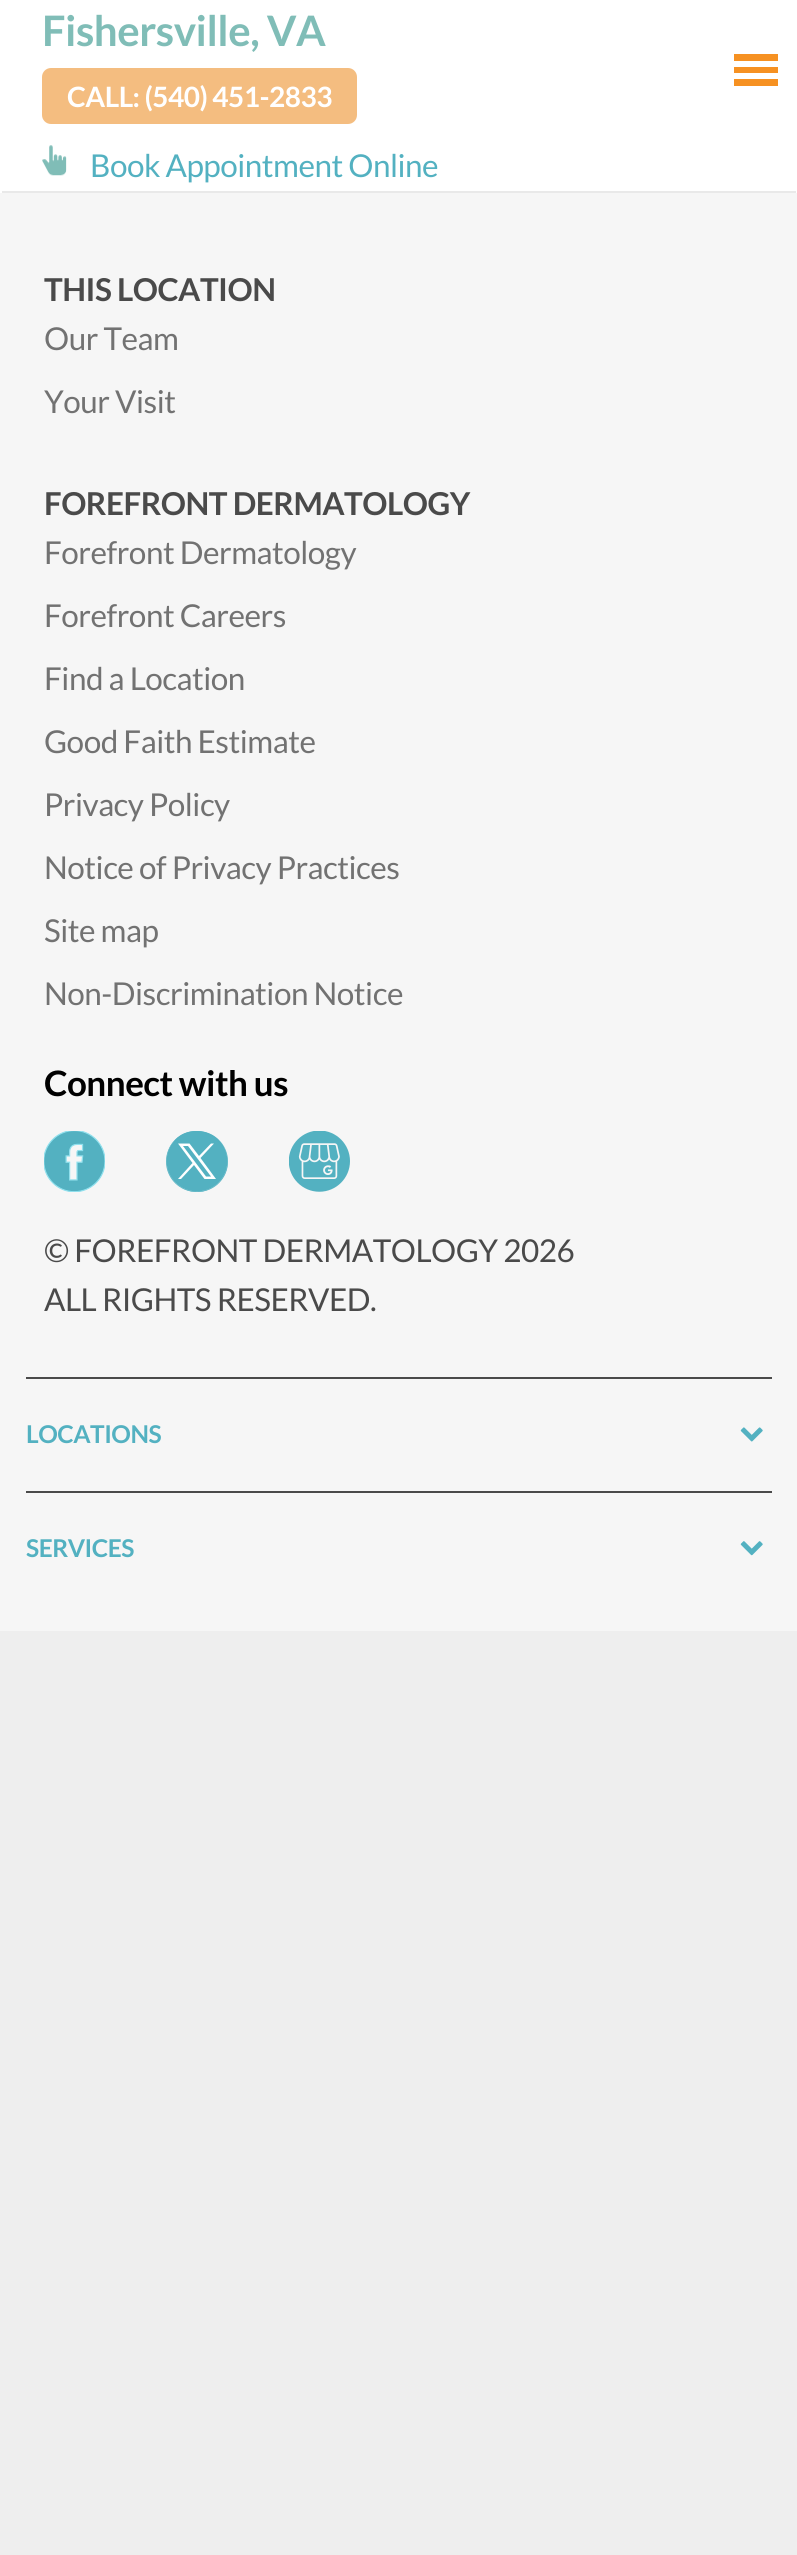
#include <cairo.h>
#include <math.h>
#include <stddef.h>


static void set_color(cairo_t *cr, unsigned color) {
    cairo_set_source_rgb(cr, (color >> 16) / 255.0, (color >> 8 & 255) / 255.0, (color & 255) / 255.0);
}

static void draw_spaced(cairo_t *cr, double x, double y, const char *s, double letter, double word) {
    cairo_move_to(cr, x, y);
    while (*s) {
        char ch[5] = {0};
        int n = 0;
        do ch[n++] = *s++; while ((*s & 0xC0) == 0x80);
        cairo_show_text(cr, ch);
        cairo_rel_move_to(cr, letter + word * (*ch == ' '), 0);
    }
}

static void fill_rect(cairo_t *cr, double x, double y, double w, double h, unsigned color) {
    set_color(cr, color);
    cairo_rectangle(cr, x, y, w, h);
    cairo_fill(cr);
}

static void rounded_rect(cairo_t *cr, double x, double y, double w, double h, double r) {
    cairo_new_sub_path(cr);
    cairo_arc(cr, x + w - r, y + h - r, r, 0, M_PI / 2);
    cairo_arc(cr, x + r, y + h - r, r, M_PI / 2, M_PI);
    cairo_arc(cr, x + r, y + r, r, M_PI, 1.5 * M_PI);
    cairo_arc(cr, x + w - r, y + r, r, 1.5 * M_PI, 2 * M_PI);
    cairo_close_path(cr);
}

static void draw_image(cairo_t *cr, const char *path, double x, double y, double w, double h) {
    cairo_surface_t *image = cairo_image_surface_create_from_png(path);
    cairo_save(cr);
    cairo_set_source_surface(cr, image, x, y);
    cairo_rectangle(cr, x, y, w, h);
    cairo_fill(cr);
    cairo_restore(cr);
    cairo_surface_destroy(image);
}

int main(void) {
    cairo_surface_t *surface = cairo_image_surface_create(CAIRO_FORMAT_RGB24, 797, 2555);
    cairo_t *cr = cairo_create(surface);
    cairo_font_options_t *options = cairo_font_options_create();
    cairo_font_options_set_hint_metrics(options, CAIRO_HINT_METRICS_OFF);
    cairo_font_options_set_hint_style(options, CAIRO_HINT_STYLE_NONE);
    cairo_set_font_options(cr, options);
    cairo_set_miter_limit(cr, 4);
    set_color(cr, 0xEEEEEE);
    cairo_paint(cr);
    fill_rect(cr, 0, 0, 797, 193, 0xFFFFFF);
    cairo_select_font_face(cr, "Lato", CAIRO_FONT_SLANT_NORMAL, CAIRO_FONT_WEIGHT_BOLD);
    cairo_set_font_size(cr, 42);
    set_color(cr, 0x80BDB7);
    draw_spaced(cr, 42, 46, "Fishersville, VA", -0.5, 0);
    set_color(cr, 0xF4BD80);
    rounded_rect(cr, 42, 68, 315, 56, 9);
    cairo_fill(cr);
    cairo_set_font_size(cr, 28);
    set_color(cr, 0xFFFFFF);
    draw_spaced(cr, 67, 107, "CALL: (540) 451-2833", -0.5, 0);
    draw_image(cr, "assets/img1.png", 42, 145, 25, 31);
    cairo_select_font_face(cr, "Lato", CAIRO_FONT_SLANT_NORMAL, CAIRO_FONT_WEIGHT_NORMAL);
    cairo_set_font_size(cr, 31.5);
    set_color(cr, 0x53B1C1);
    draw_spaced(cr, 90, 177, "Book Appointment Online", -0.5, 0);
    fill_rect(cr, 2, 191, 794, 2, 0xE9E9E9);
    set_color(cr, 0xF69122);
    cairo_new_path(cr);
    cairo_move_to(cr, 734, 86);
    cairo_line_to(cr, 778, 86);
    cairo_line_to(cr, 778, 79);
    cairo_line_to(cr, 734, 79);
    cairo_close_path(cr);
    cairo_move_to(cr, 734, 54);
    cairo_line_to(cr, 734, 61);
    cairo_line_to(cr, 778, 61);
    cairo_line_to(cr, 778, 54);
    cairo_close_path(cr);
    cairo_move_to(cr, 734, 73);
    cairo_line_to(cr, 778, 73);
    cairo_line_to(cr, 778, 67);
    cairo_line_to(cr, 734, 67);
    cairo_close_path(cr);
    cairo_fill(cr);
    fill_rect(cr, 0, 193, 797, 1438, 0xF6F6F6);
    cairo_select_font_face(cr, "Lato", CAIRO_FONT_SLANT_NORMAL, CAIRO_FONT_WEIGHT_BOLD);
    set_color(cr, 0x4A4A4A);
    draw_spaced(cr, 44, 301, "THIS LOCATION", -0.5, 0);
    cairo_select_font_face(cr, "Lato", CAIRO_FONT_SLANT_NORMAL, CAIRO_FONT_WEIGHT_NORMAL);
    set_color(cr, 0x727272);
    draw_spaced(cr, 44, 350, "Our Team", -0.5, 0);
    draw_spaced(cr, 44, 413, "Your Visit", -0.5, 0);
    cairo_select_font_face(cr, "Lato", CAIRO_FONT_SLANT_NORMAL, CAIRO_FONT_WEIGHT_BOLD);
    set_color(cr, 0x4A4A4A);
    draw_spaced(cr, 44, 515, "FOREFRONT DERMATOLOGY", -0.5, 0);
    cairo_select_font_face(cr, "Lato", CAIRO_FONT_SLANT_NORMAL, CAIRO_FONT_WEIGHT_NORMAL);
    set_color(cr, 0x727272);
    draw_spaced(cr, 44, 564, "Forefront Dermatology", -0.5, 0);
    draw_spaced(cr, 44, 627, "Forefront Careers", -0.5, 0);
    draw_spaced(cr, 44, 690, "Find a Location", -0.5, 0);
    draw_spaced(cr, 44, 753, "Good Faith Estimate", -0.5, 0);
    draw_spaced(cr, 44, 816, "Privacy Policy", -0.5, 0);
    draw_spaced(cr, 44, 879, "Notice of Privacy Practices", -0.5, 0);
    draw_spaced(cr, 44, 942, "Site map", -0.5, 0);
    draw_spaced(cr, 44, 1005, "Non-Discrimination Notice", -0.5, 0);
    cairo_select_font_face(cr, "Lato", CAIRO_FONT_SLANT_NORMAL, CAIRO_FONT_WEIGHT_BOLD);
    cairo_set_font_size(cr, 35);
    set_color(cr, 0x000000);
    draw_spaced(cr, 44, 1096, "Connect with us", -0.5, 0);
    draw_image(cr, "assets/img2.png", 44, 1131, 61, 61);
    set_color(cr, 0x53B1C1);
    rounded_rect(cr, 166, 1131, 62, 61, 30.5);
    cairo_fill(cr);
    cairo_new_path(cr);
    cairo_move_to(cr, 196, 1131);
    cairo_curve_to(cr, 226, 1131, 240, 1169, 214, 1186);
    cairo_curve_to(cr, 209, 1190, 203, 1192, 197, 1192);
    cairo_curve_to(cr, 191, 1192, 185, 1190, 180, 1186);
    cairo_curve_to(cr, 155, 1169, 167, 1131, 196, 1131);
    cairo_close_path(cr);
    cairo_fill(cr);
    cairo_save(cr);
    rounded_rect(cr, 166, 1131, 62, 61, 30.5);
    cairo_clip(cr);
    cairo_arc(cr, 197, 1161, 30.5, 0, 2 * M_PI);
    set_color(cr, 0xFFFFFF);
    cairo_set_line_width(cr, 0.1);
    cairo_stroke(cr);
    cairo_restore(cr);
    set_color(cr, 0xFFFFFF);
    cairo_new_path(cr);
    cairo_move_to(cr, 178, 1143.5);
    cairo_line_to(cr, 192.5, 1163);
    cairo_line_to(cr, 178, 1179);
    cairo_line_to(cr, 181, 1179);
    cairo_line_to(cr, 194, 1165);
    cairo_line_to(cr, 204.5, 1179);
    cairo_line_to(cr, 216, 1179);
    cairo_line_to(cr, 200.5, 1158);
    cairo_line_to(cr, 214, 1143.5);
    cairo_line_to(cr, 211, 1143.5);
    cairo_line_to(cr, 199, 1156);
    cairo_line_to(cr, 189.5, 1143.5);
    cairo_close_path(cr);
    cairo_move_to(cr, 183, 1146);
    cairo_line_to(cr, 188, 1146);
    cairo_line_to(cr, 211, 1176.5);
    cairo_line_to(cr, 206, 1176.5);
    cairo_close_path(cr);
    cairo_fill(cr);
    draw_image(cr, "assets/img3.png", 289, 1131, 61, 61);
    cairo_select_font_face(cr, "Lato", CAIRO_FONT_SLANT_NORMAL, CAIRO_FONT_WEIGHT_NORMAL);
    cairo_set_font_size(cr, 31.5);
    set_color(cr, 0x4A4A4A);
    draw_spaced(cr, 44, 1262, "© FOREFRONT DERMATOLOGY 2026", -0.5, 0);
    draw_spaced(cr, 44, 1311, "ALL RIGHTS RESERVED.", -0.5, 0);
    fill_rect(cr, 26, 1377, 746, 2, 0x4A4A4A);
    cairo_select_font_face(cr, "Lato", CAIRO_FONT_SLANT_NORMAL, CAIRO_FONT_WEIGHT_BOLD);
    cairo_set_font_size(cr, 24.5);
    set_color(cr, 0x53B1C1);
    draw_spaced(cr, 26, 1443, "LOCATIONS", -0.5, 0);
    draw_image(cr, "assets/img4.png", 740, 1427, 23, 15);
    fill_rect(cr, 26, 1491, 746, 2, 0x4A4A4A);
    set_color(cr, 0x53B1C1);
    draw_spaced(cr, 26, 1557, "SERVICES", -0.5, 0);
    draw_image(cr, "assets/img5.png", 740, 1541, 23, 15);
    cairo_surface_write_to_png(surface, "output.png");
    cairo_font_options_destroy(options);
    cairo_destroy(cr);
    cairo_surface_destroy(surface);
    return 0;
}
